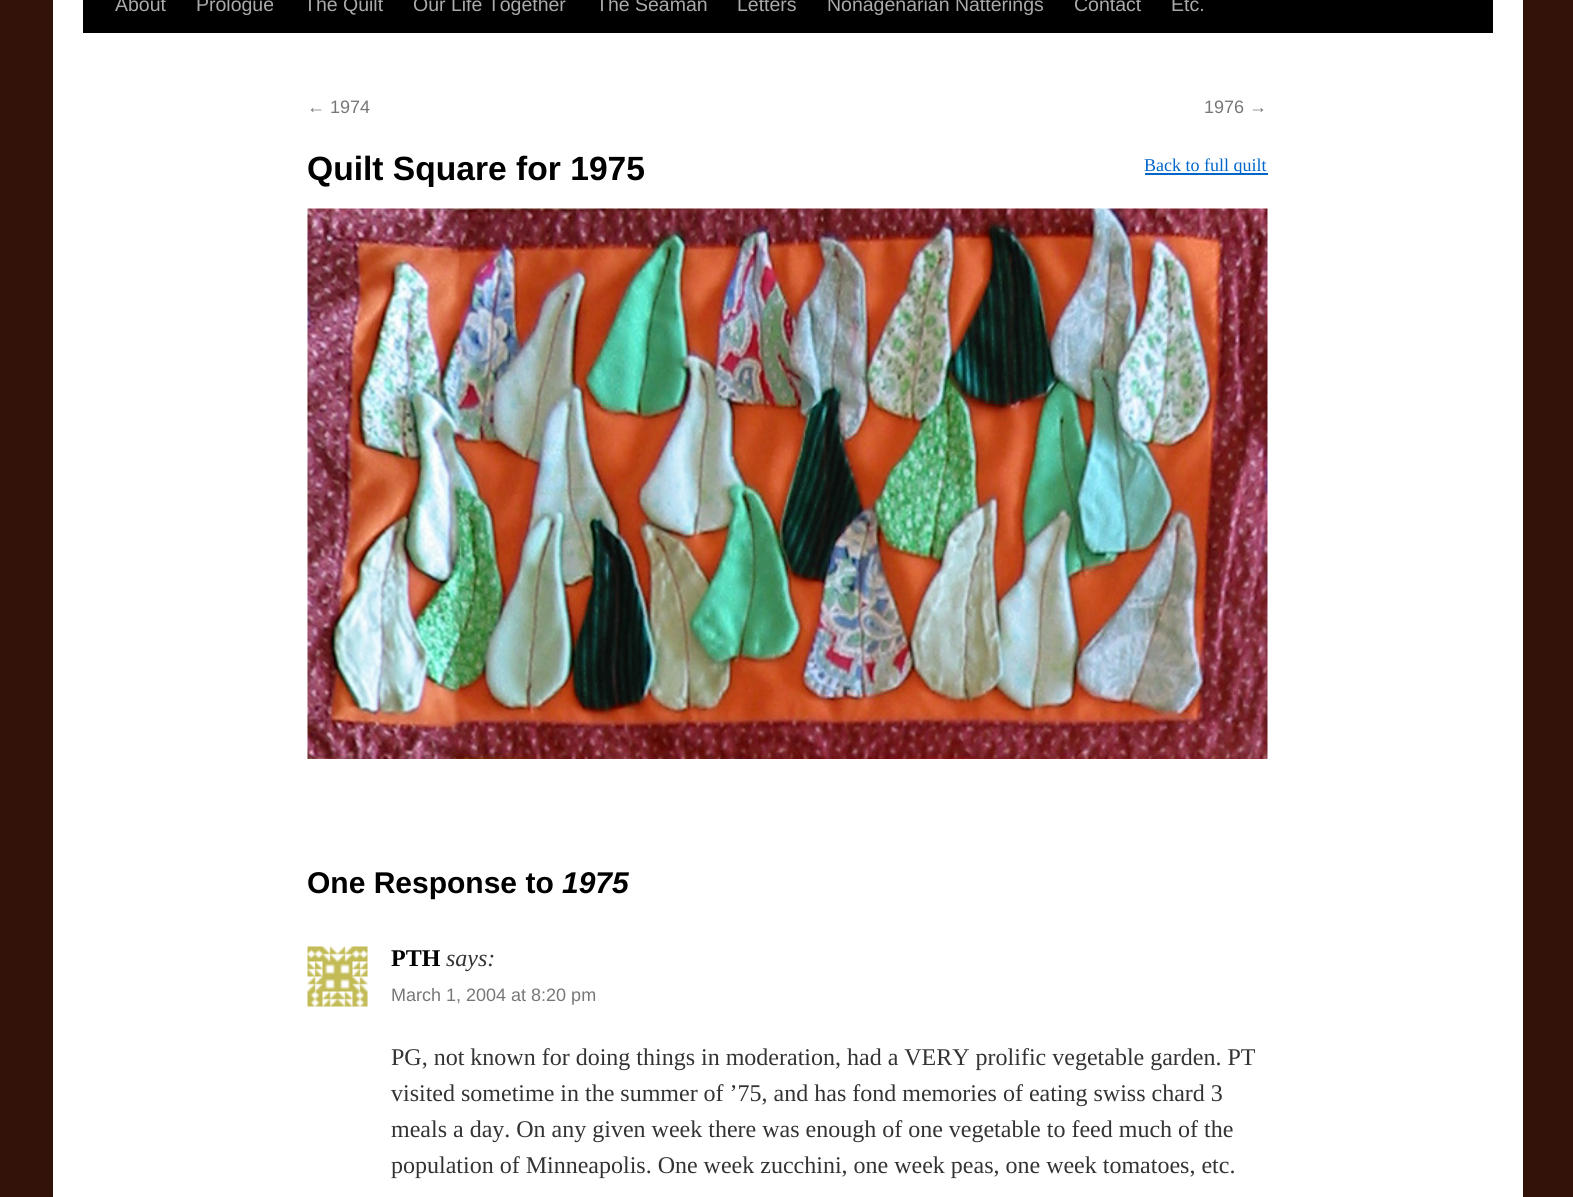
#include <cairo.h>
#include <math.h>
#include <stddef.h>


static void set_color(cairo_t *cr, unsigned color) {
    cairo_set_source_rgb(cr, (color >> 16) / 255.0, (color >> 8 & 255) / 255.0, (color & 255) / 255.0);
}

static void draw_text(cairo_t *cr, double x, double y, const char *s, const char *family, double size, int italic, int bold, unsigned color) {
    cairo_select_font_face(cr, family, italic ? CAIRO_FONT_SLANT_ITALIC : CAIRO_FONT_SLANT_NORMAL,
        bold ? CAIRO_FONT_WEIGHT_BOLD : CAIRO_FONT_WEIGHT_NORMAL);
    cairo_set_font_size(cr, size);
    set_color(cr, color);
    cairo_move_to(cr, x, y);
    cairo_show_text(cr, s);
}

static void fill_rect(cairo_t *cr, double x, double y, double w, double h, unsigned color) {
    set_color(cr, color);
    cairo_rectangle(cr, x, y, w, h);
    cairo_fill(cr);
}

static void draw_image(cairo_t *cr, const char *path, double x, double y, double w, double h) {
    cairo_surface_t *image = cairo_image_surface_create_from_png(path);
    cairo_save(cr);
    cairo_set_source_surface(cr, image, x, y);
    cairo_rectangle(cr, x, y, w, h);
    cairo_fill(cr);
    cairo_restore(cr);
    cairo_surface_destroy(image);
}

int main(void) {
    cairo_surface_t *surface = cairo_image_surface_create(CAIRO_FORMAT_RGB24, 1573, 1197);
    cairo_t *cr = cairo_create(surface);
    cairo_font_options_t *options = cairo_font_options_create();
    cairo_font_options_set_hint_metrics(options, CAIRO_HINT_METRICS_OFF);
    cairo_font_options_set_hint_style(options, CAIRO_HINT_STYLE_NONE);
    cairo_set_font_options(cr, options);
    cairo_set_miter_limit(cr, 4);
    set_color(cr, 0x331209);
    cairo_paint(cr);
    fill_rect(cr, 53, 0, 1470, 1197, 0xFFFFFF);
    fill_rect(cr, 83, 0, 1410, 33, 0x000000);
    draw_text(cr, 115, 11, "About", "Liberation Sans", 19.5, 0, 0, 0xAAAAAA);
    draw_text(cr, 196, 11, "Prologue", "Liberation Sans", 19.5, 0, 0, 0xAAAAAA);
    draw_text(cr, 304, 11, "The Quilt", "Liberation Sans", 19.5, 0, 0, 0xAAAAAA);
    draw_text(cr, 413, 11, "Our Life Together", "Liberation Sans", 19.5, 0, 0, 0xAAAAAA);
    draw_text(cr, 596, 11, "The Seaman", "Liberation Sans", 19.5, 0, 0, 0xAAAAAA);
    draw_text(cr, 737, 11, "Letters", "Liberation Sans", 19.5, 0, 0, 0xAAAAAA);
    draw_text(cr, 827, 11, "Nonagenarian Natterings", "Liberation Sans", 19.5, 0, 0, 0xAAAAAA);
    draw_text(cr, 1074, 11, "Contact", "Liberation Sans", 19.5, 0, 0, 0xAAAAAA);
    draw_text(cr, 1171, 11, "Etc.", "Liberation Sans", 19.5, 0, 0, 0xAAAAAA);
    draw_text(cr, 307, 113, "← 1974", "Liberation Sans", 18, 0, 0, 0x777777);
    draw_text(cr, 1204, 113, "1976 →", "Liberation Sans", 18, 0, 0, 0x777777);
    draw_text(cr, 307, 180, "Quilt Square for 1975", "Liberation Sans", 33.6, 0, 1, 0x000000);
    fill_rect(cr, 1145, 173, 123, 2, 0x0066CC);
    draw_text(cr, 1144, 171, "Back to full quilt", "Liberation Serif", 18, 0, 0, 0x0066CC);
    draw_image(cr, "assets/img1.png", 307, 208, 961, 551);
    draw_text(cr, 307, 893, "One Response to", "Liberation Sans", 30, 0, 1, 0x000000);
    draw_text(cr, 562, 893, "1975", "Liberation Sans", 30, 1, 1, 0x000000);
    draw_image(cr, "assets/img2.png", 307, 946, 61, 61);
    draw_text(cr, 391, 966, "PTH", "Liberation Serif", 24, 0, 1, 0x000000);
    draw_text(cr, 446, 966, "says:", "Liberation Serif", 24, 1, 0, 0x333333);
    draw_text(cr, 391, 1001, "March 1, 2004 at 8:20 pm", "Liberation Sans", 18, 0, 0, 0x777777);
    draw_text(cr, 391, 1065, "PG, not known for doing things in moderation, had a VERY prolific vegetable garden. PT", "Liberation Serif", 24, 0, 0, 0x333333);
    draw_text(cr, 391, 1101, "visited sometime in the summer of ’75, and has fond memories of eating swiss chard 3", "Liberation Serif", 24, 0, 0, 0x333333);
    draw_text(cr, 391, 1137, "meals a day. On any given week there was enough of one vegetable to feed much of the", "Liberation Serif", 24, 0, 0, 0x333333);
    draw_text(cr, 391, 1173, "population of Minneapolis. One week zucchini, one week peas, one week tomatoes, etc.", "Liberation Serif", 24, 0, 0, 0x333333);
    cairo_surface_write_to_png(surface, "output.png");
    cairo_font_options_destroy(options);
    cairo_destroy(cr);
    cairo_surface_destroy(surface);
    return 0;
}
